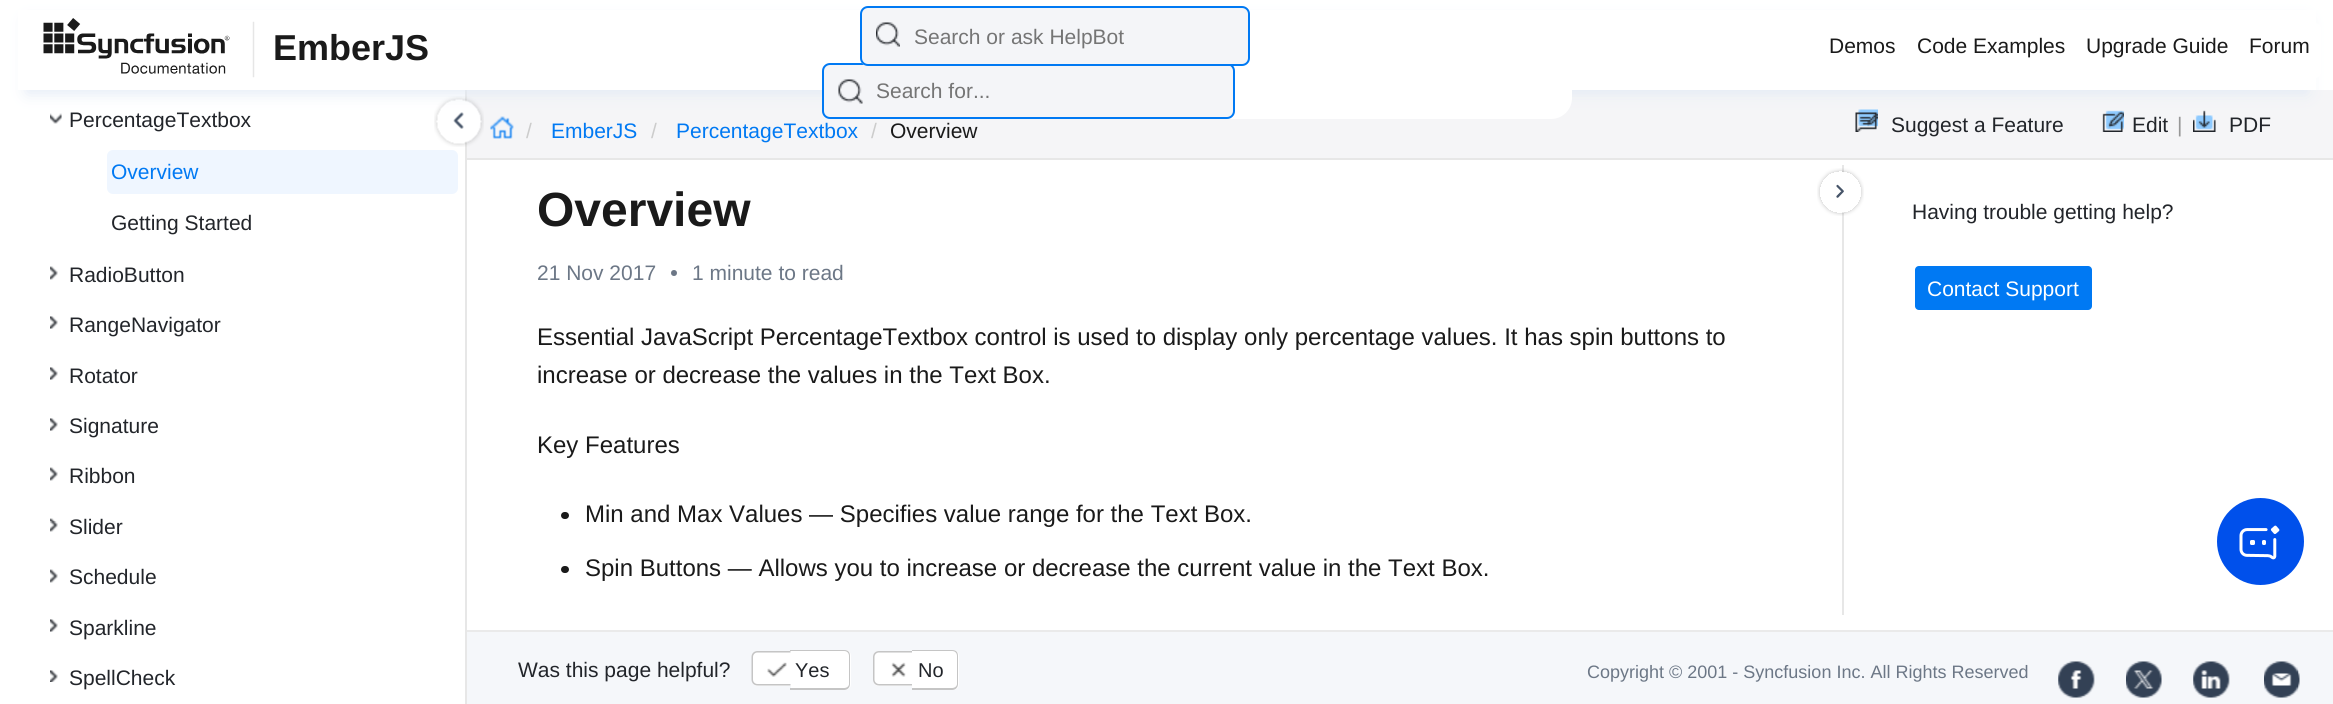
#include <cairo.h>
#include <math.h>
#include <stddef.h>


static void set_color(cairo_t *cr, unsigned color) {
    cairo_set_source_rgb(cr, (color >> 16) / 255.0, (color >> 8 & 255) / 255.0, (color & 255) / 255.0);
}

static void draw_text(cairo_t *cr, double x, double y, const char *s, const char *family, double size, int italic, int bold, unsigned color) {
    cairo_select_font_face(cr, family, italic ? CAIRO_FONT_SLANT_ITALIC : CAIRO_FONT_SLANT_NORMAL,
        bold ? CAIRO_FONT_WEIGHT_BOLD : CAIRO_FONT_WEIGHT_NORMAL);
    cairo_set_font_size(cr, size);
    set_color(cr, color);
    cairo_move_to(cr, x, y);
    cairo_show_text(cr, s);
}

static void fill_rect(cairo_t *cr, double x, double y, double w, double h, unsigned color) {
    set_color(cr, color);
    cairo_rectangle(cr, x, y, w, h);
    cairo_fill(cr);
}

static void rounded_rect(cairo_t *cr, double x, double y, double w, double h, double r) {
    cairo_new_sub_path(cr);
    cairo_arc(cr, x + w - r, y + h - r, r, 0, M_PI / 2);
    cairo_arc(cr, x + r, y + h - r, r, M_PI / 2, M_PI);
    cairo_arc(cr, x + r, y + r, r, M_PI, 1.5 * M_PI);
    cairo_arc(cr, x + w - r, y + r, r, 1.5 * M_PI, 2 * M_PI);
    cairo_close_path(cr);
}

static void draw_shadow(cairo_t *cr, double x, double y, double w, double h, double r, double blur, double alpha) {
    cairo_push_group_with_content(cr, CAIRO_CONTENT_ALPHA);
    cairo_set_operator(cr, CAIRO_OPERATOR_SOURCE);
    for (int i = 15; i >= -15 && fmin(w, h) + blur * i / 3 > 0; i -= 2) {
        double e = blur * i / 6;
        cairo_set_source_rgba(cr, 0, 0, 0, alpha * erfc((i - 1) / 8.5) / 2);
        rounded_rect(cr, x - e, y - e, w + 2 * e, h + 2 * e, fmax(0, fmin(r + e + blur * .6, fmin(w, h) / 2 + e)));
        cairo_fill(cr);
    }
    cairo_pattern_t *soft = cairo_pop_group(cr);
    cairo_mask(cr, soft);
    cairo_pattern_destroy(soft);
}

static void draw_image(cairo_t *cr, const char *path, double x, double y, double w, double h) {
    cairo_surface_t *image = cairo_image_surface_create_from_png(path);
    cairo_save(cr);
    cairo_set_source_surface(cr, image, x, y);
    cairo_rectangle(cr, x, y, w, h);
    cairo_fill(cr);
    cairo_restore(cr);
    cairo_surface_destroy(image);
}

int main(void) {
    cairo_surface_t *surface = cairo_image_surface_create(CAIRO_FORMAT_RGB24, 2333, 704);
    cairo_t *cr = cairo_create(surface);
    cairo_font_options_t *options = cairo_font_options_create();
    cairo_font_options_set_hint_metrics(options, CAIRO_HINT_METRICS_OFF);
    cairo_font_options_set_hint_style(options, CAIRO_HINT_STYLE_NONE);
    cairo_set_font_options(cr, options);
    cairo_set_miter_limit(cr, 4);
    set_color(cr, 0xFFFFFF);
    cairo_paint(cr);
    fill_rect(cr, 467, 90, 1866, 68, 0xF5F5F7);
    draw_image(cr, "assets/img4.png", 490, 116, 24, 23);
    draw_image(cr, "assets/img5.png", 1855, 109, 23, 23);
    draw_image(cr, "assets/img6.png", 2102, 110, 22, 22);
    draw_image(cr, "assets/img7.png", 2193, 110, 23, 22);
    fill_rect(cr, 465, 90, 2, 614, 0xE7E7E7);
    draw_image(cr, "assets/img8.png", 50, 113, 12, 11);
    draw_image(cr, "assets/img13.png", 434, 96, 50, 51);
    set_color(cr, 0xE2EAF5);
    draw_shadow(cr, 27, 21, 2280, 72, 0, 8, 1);
    fill_rect(cr, 18, 10, 2298, 80, 0xFFFFFF);
    draw_image(cr, "assets/img1.png", 43, 18, 212, 60);
    draw_text(cr, 273, 60, "EmberJS", "Liberation Sans", 36, 0, 1, 0x1A1A1A);
    set_color(cr, 0xFFFFFF);
    rounded_rect(cr, 822, 66, 750, 53, 21);
    cairo_fill(cr);
    set_color(cr, 0xF4F5F8);
    rounded_rect(cr, 822, 63, 413, 56, 8);
    cairo_fill(cr);
    draw_image(cr, "assets/img3.png", 838, 79, 25, 25);
    rounded_rect(cr, 823, 64, 411, 54, 7);
    set_color(cr, 0x0079F3);
    cairo_stroke(cr);
    set_color(cr, 0xF4F5F8);
    rounded_rect(cr, 860, 6, 390, 60, 8);
    cairo_fill(cr);
    draw_image(cr, "assets/img2.png", 876, 22, 24, 25);
    rounded_rect(cr, 861, 7, 388, 58, 7);
    set_color(cr, 0x0079F3);
    cairo_stroke(cr);
    draw_text(cr, 914, 44, "Search or ask HelpBot", "Liberation Sans", 21, 0, 0, 0x757575);
    draw_text(cr, 876, 98, "Search for...", "Liberation Sans", 21, 0, 0, 0x757575);
    draw_text(cr, 1829, 53, "Demos", "Liberation Sans", 21, 0, 0, 0x1A1A1A);
    draw_text(cr, 1917, 53, "Code Examples", "Liberation Sans", 21, 0, 0, 0x1A1A1A);
    draw_text(cr, 2086, 53, "Upgrade Guide", "Liberation Sans", 21, 0, 0, 0x1A1A1A);
    set_color(cr, 0xFFFFFF);
    rounded_rect(cr, 2240, 23, 81, 55, 6);
    cairo_fill(cr);
    draw_text(cr, 2249, 53, "Forum", "Liberation Sans", 21, 0, 0, 0x1A1A1A);
    fill_rect(cr, 467, 158, 1866, 2, 0xE7E7E7);
    draw_text(cr, 526, 138, "/", "Liberation Sans", 21, 0, 0, 0xCCCCCC);
    draw_text(cr, 551, 138, "EmberJS", "Liberation Sans", 21, 0, 0, 0x0079F3);
    draw_text(cr, 651, 138, "/", "Liberation Sans", 21, 0, 0, 0xCCCCCC);
    draw_text(cr, 676, 138, "PercentageTextbox", "Liberation Sans", 21, 0, 0, 0x0079F3);
    draw_text(cr, 871, 138, "/", "Liberation Sans", 21, 0, 0, 0xCCCCCC);
    draw_text(cr, 890, 138, "Overview", "Liberation Sans", 21, 0, 0, 0x1A1A1A);
    draw_text(cr, 1891, 132, "Suggest a Feature", "Liberation Sans", 21, 0, 0, 0x22252A);
    draw_text(cr, 2132, 132, "Edit", "Liberation Sans", 21, 0, 0, 0x22252A);
    draw_text(cr, 2177, 132, "|", "Liberation Sans", 21, 0, 0, 0x979797);
    draw_text(cr, 2229, 132, "PDF", "Liberation Sans", 21, 0, 0, 0x22252A);
    draw_text(cr, 69, 127, "PercentageTextbox", "Liberation Sans", 21, 0, 0, 0x22252A);
    set_color(cr, 0xEFF6FF);
    rounded_rect(cr, 107, 150, 351, 44, 6);
    cairo_fill(cr);
    draw_text(cr, 111, 179, "Overview", "Liberation Sans", 21, 0, 0, 0x0079F3);
    draw_text(cr, 111, 230, "Getting Started", "Liberation Sans", 21, 0, 0, 0x22252A);
    draw_image(cr, "assets/img9.png", 50, 266, 8, 14);
    draw_text(cr, 69, 282, "RadioButton", "Liberation Sans", 21, 0, 0, 0x22252A);
    draw_image(cr, "assets/img10.png", 50, 316, 8, 13);
    draw_text(cr, 69, 332, "RangeNavigator", "Liberation Sans", 21, 0, 0, 0x22252A);
    draw_image(cr, "assets/img10.png", 50, 367, 8, 13);
    draw_text(cr, 69, 383, "Rotator", "Liberation Sans", 21, 0, 0, 0x22252A);
    draw_image(cr, "assets/img10.png", 50, 418, 8, 13);
    draw_text(cr, 69, 433, "Signature", "Liberation Sans", 21, 0, 0, 0x22252A);
    draw_image(cr, "assets/img9.png", 50, 467, 8, 14);
    draw_text(cr, 69, 483, "Ribbon", "Liberation Sans", 21, 0, 0, 0x22252A);
    draw_image(cr, "assets/img11.png", 50, 518, 8, 14);
    draw_text(cr, 69, 534, "Slider", "Liberation Sans", 21, 0, 0, 0x22252A);
    draw_image(cr, "assets/img9.png", 50, 569, 8, 14);
    draw_text(cr, 69, 584, "Schedule", "Liberation Sans", 21, 0, 0, 0x22252A);
    draw_image(cr, "assets/img10.png", 50, 619, 8, 13);
    draw_text(cr, 69, 635, "Sparkline", "Liberation Sans", 21, 0, 0, 0x22252A);
    draw_image(cr, "assets/img12.png", 50, 670, 8, 12);
    draw_text(cr, 69, 685, "SpellCheck", "Liberation Sans", 21, 0, 0, 0x22252A);
    fill_rect(cr, 1842, 165, 2, 450, 0xE7E7E7);
    draw_text(cr, 537, 226, "Overview", "Liberation Sans", 48, 0, 1, 0x1A1A1A);
    draw_text(cr, 537, 280, "21 Nov 2017", "Liberation Sans", 21, 0, 0, 0x6C7786);
    cairo_new_path(cr);
    cairo_arc(cr, 674, 273, 3, 0, 2 * M_PI);
    cairo_fill(cr);
    draw_text(cr, 692, 280, "1 minute to read", "Liberation Sans", 21, 0, 0, 0x6C7786);
    draw_text(cr, 537, 345, "Essential JavaScript PercentageTextbox control is used to display only percentage values. It has spin buttons to", "Liberation Sans", 24, 0, 0, 0x1A1A1A);
    draw_text(cr, 537, 383, "increase or decrease the values in the Text Box.", "Liberation Sans", 24, 0, 0, 0x1A1A1A);
    draw_text(cr, 537, 453, "Key Features", "Liberation Sans", 24, 0, 0, 0x1A1A1A);
    rounded_rect(cr, 561, 512, 8, 7, 3.5);
    cairo_fill(cr);
    draw_text(cr, 585, 522, "Min and Max Values — Specifies value range for the Text Box.", "Liberation Sans", 24, 0, 0, 0x1A1A1A);
    rounded_rect(cr, 561, 566, 8, 7, 3.5);
    cairo_fill(cr);
    draw_text(cr, 585, 576, "Spin Buttons — Allows you to increase or decrease the current value in the Text Box.", "Liberation Sans", 24, 0, 0, 0x1A1A1A);
    draw_image(cr, "assets/img14.png", 1817, 168, 47, 48);
    draw_text(cr, 1912, 219, "Having trouble getting help?", "Liberation Sans", 21, 0, 0, 0x22252A);
    set_color(cr, 0x0079F3);
    rounded_rect(cr, 1914, 265, 179, 46, 5);
    cairo_fill_preserve(cr);
    set_color(cr, 0xFFFFFF);
    cairo_stroke(cr);
    draw_text(cr, 1927, 296, "Contact Support", "Liberation Sans", 21, 0, 0, 0xFFFFFF);
    set_color(cr, 0x0050EB);
    cairo_new_path(cr);
    cairo_arc(cr, 2260.5, 541.5, 43.5, 0, 2 * M_PI);
    cairo_fill(cr);
    draw_image(cr, "assets/img15.png", 2239, 525, 41, 35);
    fill_rect(cr, 467, 632, 1866, 72, 0xF5F7FA);
    fill_rect(cr, 467, 630, 1866, 2, 0xEAEAEA);
    draw_text(cr, 518, 677, "Was this page helpful?", "Liberation Sans", 21, 0, 0, 0x22252A);
    set_color(cr, 0xFFFFFF);
    cairo_new_path(cr);
    cairo_move_to(cr, 758, 651);
    cairo_line_to(cr, 791, 651);
    cairo_line_to(cr, 791, 686);
    cairo_line_to(cr, 758, 686);
    cairo_curve_to(cr, 754.5, 686, 752, 683.5, 752, 680);
    cairo_line_to(cr, 752, 657);
    cairo_curve_to(cr, 752, 653.5, 754.5, 651, 758, 651);
    cairo_close_path(cr);
    cairo_fill(cr);
    set_color(cr, 0xC5C5C5);
    cairo_set_fill_rule(cr, CAIRO_FILL_RULE_EVEN_ODD);
    cairo_new_path(cr);
    cairo_move_to(cr, 757.5, 651);
    cairo_line_to(cr, 790.5, 651);
    cairo_line_to(cr, 790.5, 685.5);
    cairo_line_to(cr, 757.5, 685.5);
    cairo_curve_to(cr, 754, 685.5, 751.5, 683, 751.5, 679.5);
    cairo_line_to(cr, 751.5, 657);
    cairo_curve_to(cr, 751.5, 653.5, 754, 651, 757.5, 651);
    cairo_close_path(cr);
    cairo_move_to(cr, 757.5, 652.5);
    cairo_line_to(cr, 790.5, 652.5);
    cairo_line_to(cr, 790.5, 684);
    cairo_line_to(cr, 757.5, 684);
    cairo_curve_to(cr, 755, 684, 753, 682, 753, 679.5);
    cairo_line_to(cr, 753, 657);
    cairo_curve_to(cr, 753, 654.5, 755, 652.5, 757.5, 652.5);
    cairo_close_path(cr);
    cairo_fill(cr);
    set_color(cr, 0xFFFFFF);
    cairo_new_path(cr);
    cairo_move_to(cr, 791, 650);
    cairo_line_to(cr, 845, 650);
    cairo_curve_to(cr, 848.5, 650, 851, 652.5, 851, 656);
    cairo_line_to(cr, 851, 684);
    cairo_curve_to(cr, 851, 687.5, 848.5, 690, 845, 690);
    cairo_line_to(cr, 791, 690);
    cairo_close_path(cr);
    cairo_fill(cr);
    set_color(cr, 0xC5C5C5);
    cairo_new_path(cr);
    cairo_move_to(cr, 790, 650);
    cairo_line_to(cr, 844, 650);
    cairo_curve_to(cr, 848, 650, 850, 652, 850, 656);
    cairo_line_to(cr, 850, 684);
    cairo_curve_to(cr, 850, 687, 848, 690, 844, 690);
    cairo_line_to(cr, 790, 690);
    cairo_close_path(cr);
    cairo_move_to(cr, 790, 651);
    cairo_line_to(cr, 844, 651);
    cairo_curve_to(cr, 847, 651, 849, 653, 849, 656);
    cairo_line_to(cr, 849, 684);
    cairo_curve_to(cr, 849, 686, 847, 688, 844, 688);
    cairo_line_to(cr, 790, 688);
    cairo_close_path(cr);
    cairo_fill(cr);
    draw_image(cr, "assets/img16.png", 767, 662, 20, 15);
    draw_text(cr, 795, 677, "Yes", "Liberation Sans", 20, 0, 0, 0x22252A);
    set_color(cr, 0xFFFFFF);
    cairo_new_path(cr);
    cairo_move_to(cr, 879, 651);
    cairo_line_to(cr, 912, 651);
    cairo_line_to(cr, 912, 686);
    cairo_line_to(cr, 879, 686);
    cairo_curve_to(cr, 875.5, 686, 873, 683.5, 873, 680);
    cairo_line_to(cr, 873, 657);
    cairo_curve_to(cr, 873, 653.5, 875.5, 651, 879, 651);
    cairo_close_path(cr);
    cairo_fill(cr);
    set_color(cr, 0xC5C5C5);
    cairo_new_path(cr);
    cairo_move_to(cr, 879, 651);
    cairo_line_to(cr, 912, 651);
    cairo_line_to(cr, 912, 685.5);
    cairo_line_to(cr, 879, 685.5);
    cairo_curve_to(cr, 875.5, 685.5, 873, 683, 873, 679.5);
    cairo_line_to(cr, 873, 657);
    cairo_curve_to(cr, 873, 653.5, 875.5, 651, 879, 651);
    cairo_close_path(cr);
    cairo_move_to(cr, 879, 652.5);
    cairo_line_to(cr, 912, 652.5);
    cairo_line_to(cr, 912, 684);
    cairo_line_to(cr, 879, 684);
    cairo_curve_to(cr, 876.5, 684, 874.5, 682, 874.5, 679.5);
    cairo_line_to(cr, 874.5, 657);
    cairo_curve_to(cr, 874.5, 654.5, 876.5, 652.5, 879, 652.5);
    cairo_close_path(cr);
    cairo_fill(cr);
    set_color(cr, 0xFFFFFF);
    cairo_new_path(cr);
    cairo_move_to(cr, 912, 650);
    cairo_line_to(cr, 953, 650);
    cairo_curve_to(cr, 956.5, 650, 959, 652.5, 959, 656);
    cairo_line_to(cr, 959, 684);
    cairo_curve_to(cr, 959, 687.5, 956.5, 690, 953, 690);
    cairo_line_to(cr, 912, 690);
    cairo_close_path(cr);
    cairo_fill(cr);
    set_color(cr, 0xC5C5C5);
    cairo_new_path(cr);
    cairo_move_to(cr, 912, 650);
    cairo_line_to(cr, 952, 650);
    cairo_curve_to(cr, 956, 650, 958, 652, 958, 656);
    cairo_line_to(cr, 958, 684);
    cairo_curve_to(cr, 958, 687, 956, 690, 952, 690);
    cairo_line_to(cr, 912, 690);
    cairo_close_path(cr);
    cairo_move_to(cr, 912, 651);
    cairo_line_to(cr, 952, 651);
    cairo_curve_to(cr, 955, 651, 957, 653, 957, 656);
    cairo_line_to(cr, 957, 684);
    cairo_curve_to(cr, 957, 686, 955, 688, 952, 688);
    cairo_line_to(cr, 912, 688);
    cairo_close_path(cr);
    cairo_fill(cr);
    draw_image(cr, "assets/img17.png", 891, 662, 15, 15);
    draw_text(cr, 918, 677, "No", "Liberation Sans", 20, 0, 0, 0x22252A);
    draw_text(cr, 1587, 678, "Copyright © 2001 - Syncfusion Inc. All Rights Reserved", "Liberation Sans", 18, 0, 0, 0x6C7786);
    draw_image(cr, "assets/img18.png", 2058, 661, 37, 37);
    draw_image(cr, "assets/img19.png", 2126, 661, 36, 37);
    draw_image(cr, "assets/img20.png", 2193, 661, 37, 37);
    draw_image(cr, "assets/img21.png", 2264, 661, 36, 37);
    cairo_surface_write_to_png(surface, "output.png");
    cairo_font_options_destroy(options);
    cairo_destroy(cr);
    cairo_surface_destroy(surface);
    return 0;
}
